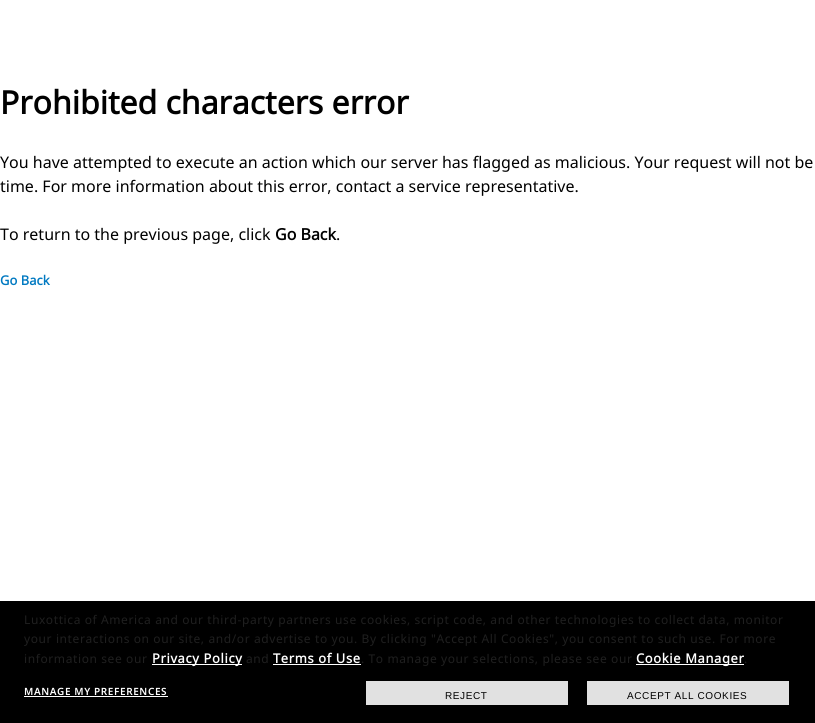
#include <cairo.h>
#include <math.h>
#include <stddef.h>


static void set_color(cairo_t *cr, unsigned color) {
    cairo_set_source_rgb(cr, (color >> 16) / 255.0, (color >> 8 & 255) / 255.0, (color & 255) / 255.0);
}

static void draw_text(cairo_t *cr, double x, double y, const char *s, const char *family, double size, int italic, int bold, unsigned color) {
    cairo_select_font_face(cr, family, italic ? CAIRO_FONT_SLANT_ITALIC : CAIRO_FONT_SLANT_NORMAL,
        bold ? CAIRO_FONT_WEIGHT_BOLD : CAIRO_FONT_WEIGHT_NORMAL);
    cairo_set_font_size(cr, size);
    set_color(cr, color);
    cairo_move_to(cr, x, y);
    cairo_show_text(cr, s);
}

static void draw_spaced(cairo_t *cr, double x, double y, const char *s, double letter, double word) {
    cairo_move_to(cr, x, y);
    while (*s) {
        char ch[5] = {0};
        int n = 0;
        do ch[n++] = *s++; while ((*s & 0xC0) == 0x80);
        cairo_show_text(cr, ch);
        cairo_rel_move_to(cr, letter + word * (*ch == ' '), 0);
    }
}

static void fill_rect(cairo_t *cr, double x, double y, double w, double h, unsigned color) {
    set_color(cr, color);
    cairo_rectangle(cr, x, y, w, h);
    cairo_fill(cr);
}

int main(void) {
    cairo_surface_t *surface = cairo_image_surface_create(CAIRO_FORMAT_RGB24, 815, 723);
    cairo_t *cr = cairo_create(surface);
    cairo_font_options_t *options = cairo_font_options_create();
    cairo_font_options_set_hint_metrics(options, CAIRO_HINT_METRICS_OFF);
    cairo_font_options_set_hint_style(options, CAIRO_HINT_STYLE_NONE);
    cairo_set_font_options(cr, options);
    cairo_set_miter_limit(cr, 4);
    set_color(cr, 0xFFFFFF);
    cairo_paint(cr);
    draw_text(cr, 0, 114, "Prohibited characters error", "Noto Sans", 32, 0, 1, 0x000000);
    draw_text(cr, 0, 168, "You have attempted to execute an action which our server has flagged as malicious. Your request will not be", "Noto Sans", 16, 0, 0, 0x000000);
    draw_text(cr, 0, 192, "time. For more information about this error, contact a service representative.", "Noto Sans", 16, 0, 0, 0x000000);
    draw_text(cr, 0, 240, "To return to the previous page, click", "Noto Sans", 16, 0, 0, 0x000000);
    draw_text(cr, 275, 240, "Go Back", "Noto Sans", 16, 0, 1, 0x000000);
    draw_text(cr, 336, 240, ".", "Noto Sans", 16, 0, 0, 0x000000);
    draw_text(cr, 0, 285, "Go Back", "Noto Sans", 13, 0, 1, 0x0079C1);
    fill_rect(cr, 0, 601, 815, 122, 0x000000);
    cairo_select_font_face(cr, "Noto Sans", CAIRO_FONT_SLANT_NORMAL, CAIRO_FONT_WEIGHT_NORMAL);
    cairo_set_font_size(cr, 12);
    set_color(cr, 0x1F1F1F);
    draw_spaced(cr, 24, 624, "Luxottica of America and our third-party partners use cookies, script code, and other technologies to collect data, monitor", 0.6, 0);
    draw_spaced(cr, 24, 643, "your interactions on our site, and/or advertise to you. By clicking \"Accept All Cookies\", you consent to such use. For more", 0.6, 0);
    draw_spaced(cr, 24, 663, "information see our", 0.6, 0);
    fill_rect(cr, 152, 664, 90, 1, 0xFFFFFF);
    cairo_select_font_face(cr, "Noto Sans", CAIRO_FONT_SLANT_NORMAL, CAIRO_FONT_WEIGHT_BOLD);
    cairo_set_font_size(cr, 13);
    draw_spaced(cr, 152, 663, "Privacy Policy", 0.6, 0);
    cairo_select_font_face(cr, "Noto Sans", CAIRO_FONT_SLANT_NORMAL, CAIRO_FONT_WEIGHT_NORMAL);
    cairo_set_font_size(cr, 12);
    set_color(cr, 0x1F1F1F);
    draw_spaced(cr, 246, 663, "and", 0.6, 0);
    cairo_select_font_face(cr, "Noto Sans", CAIRO_FONT_SLANT_NORMAL, CAIRO_FONT_WEIGHT_BOLD);
    cairo_set_font_size(cr, 13);
    set_color(cr, 0xFFFFFF);
    draw_spaced(cr, 273, 663, "Terms of Use", 0.6, 0);
    cairo_select_font_face(cr, "Noto Sans", CAIRO_FONT_SLANT_NORMAL, CAIRO_FONT_WEIGHT_NORMAL);
    cairo_set_font_size(cr, 12);
    set_color(cr, 0x1F1F1F);
    draw_spaced(cr, 361, 663, ". To manage your selections, please see our", 0.6, 0);
    fill_rect(cr, 273, 664, 88, 1, 0xFFFFFF);
    fill_rect(cr, 636, 664, 108, 1, 0xFFFFFF);
    cairo_select_font_face(cr, "Noto Sans", CAIRO_FONT_SLANT_NORMAL, CAIRO_FONT_WEIGHT_BOLD);
    cairo_set_font_size(cr, 13);
    draw_spaced(cr, 636, 663, "Cookie Manager", 0.6, 0);
    cairo_select_font_face(cr, "Noto Sans", CAIRO_FONT_SLANT_NORMAL, CAIRO_FONT_WEIGHT_NORMAL);
    cairo_set_font_size(cr, 12);
    set_color(cr, 0x1F1F1F);
    draw_spaced(cr, 744, 663, ".", 0.6, 0);
    cairo_select_font_face(cr, "Noto Sans SemiBold", CAIRO_FONT_SLANT_NORMAL, CAIRO_FONT_WEIGHT_NORMAL);
    cairo_set_font_size(cr, 10);
    set_color(cr, 0xFFFFFF);
    draw_spaced(cr, 24, 695, "MANAGE MY PREFERENCES", 0.6, 0);
    fill_rect(cr, 24, 696, 144, 1, 0xFFFFFF);
    fill_rect(cr, 366, 681, 202, 24, 0xE1E1E1);
    cairo_select_font_face(cr, "Liberation Sans", CAIRO_FONT_SLANT_NORMAL, CAIRO_FONT_WEIGHT_NORMAL);
    set_color(cr, 0x000000);
    draw_spaced(cr, 445, 699, "REJECT", 0.6, 0);
    fill_rect(cr, 587, 681, 202, 24, 0xE1E1E1);
    set_color(cr, 0x000000);
    draw_spaced(cr, 627, 699, "ACCEPT ALL COOKIES", 0.6, 0);
    cairo_surface_write_to_png(surface, "output.png");
    cairo_font_options_destroy(options);
    cairo_destroy(cr);
    cairo_surface_destroy(surface);
    return 0;
}
